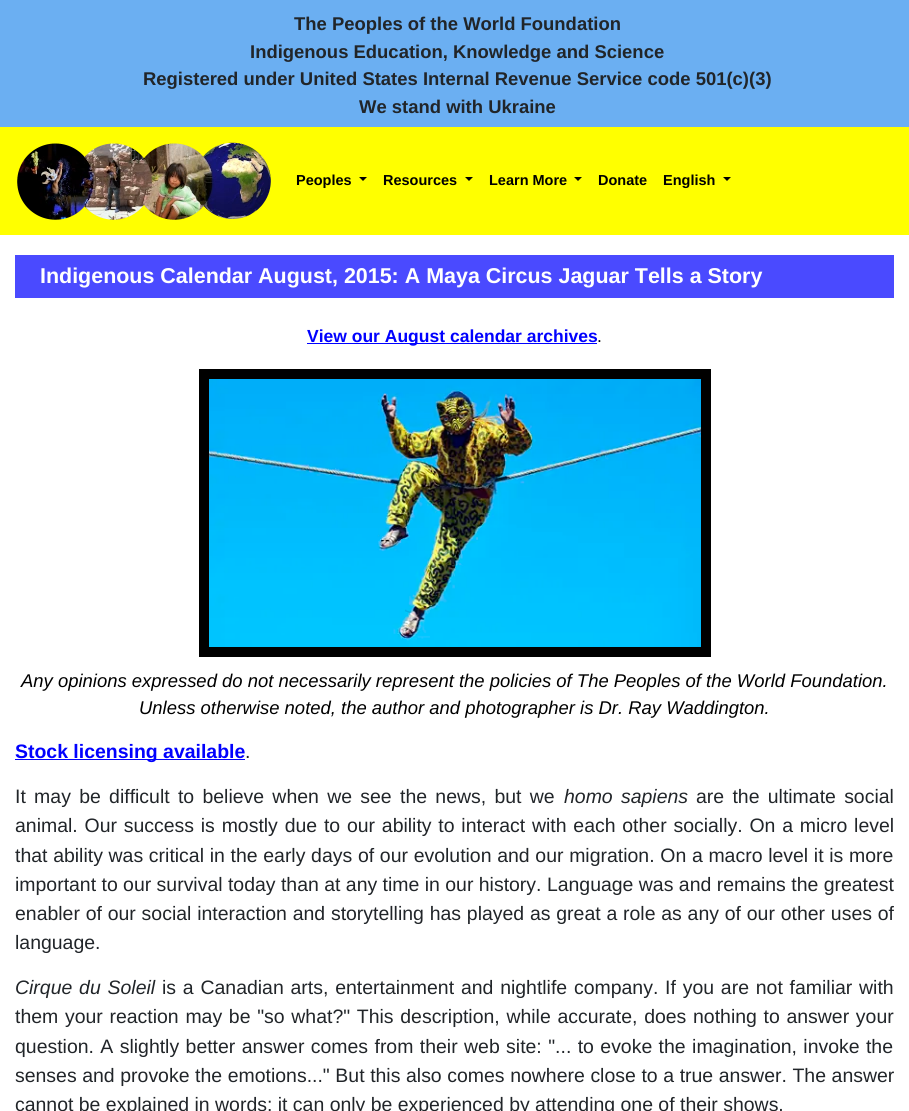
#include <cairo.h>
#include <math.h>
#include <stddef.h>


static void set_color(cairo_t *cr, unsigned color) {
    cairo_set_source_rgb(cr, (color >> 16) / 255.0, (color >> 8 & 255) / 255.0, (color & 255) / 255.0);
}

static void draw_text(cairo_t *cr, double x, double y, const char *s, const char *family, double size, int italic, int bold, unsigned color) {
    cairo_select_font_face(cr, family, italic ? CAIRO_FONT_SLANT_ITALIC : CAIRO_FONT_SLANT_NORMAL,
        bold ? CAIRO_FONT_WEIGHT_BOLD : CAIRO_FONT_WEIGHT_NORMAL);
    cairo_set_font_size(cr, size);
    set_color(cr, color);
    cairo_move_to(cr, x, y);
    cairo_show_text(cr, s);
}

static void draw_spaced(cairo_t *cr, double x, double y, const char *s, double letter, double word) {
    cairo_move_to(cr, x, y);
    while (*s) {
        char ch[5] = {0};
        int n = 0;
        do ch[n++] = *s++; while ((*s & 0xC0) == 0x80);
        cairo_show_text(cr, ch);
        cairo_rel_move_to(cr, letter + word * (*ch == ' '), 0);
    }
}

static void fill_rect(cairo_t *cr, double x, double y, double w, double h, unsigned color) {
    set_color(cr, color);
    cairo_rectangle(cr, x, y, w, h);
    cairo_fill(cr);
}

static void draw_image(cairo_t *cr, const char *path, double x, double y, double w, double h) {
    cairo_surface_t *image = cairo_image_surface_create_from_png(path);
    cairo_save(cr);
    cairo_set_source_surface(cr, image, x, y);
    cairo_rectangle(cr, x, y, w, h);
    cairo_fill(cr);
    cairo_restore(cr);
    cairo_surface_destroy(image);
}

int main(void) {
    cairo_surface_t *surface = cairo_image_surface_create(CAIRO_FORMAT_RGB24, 909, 1111);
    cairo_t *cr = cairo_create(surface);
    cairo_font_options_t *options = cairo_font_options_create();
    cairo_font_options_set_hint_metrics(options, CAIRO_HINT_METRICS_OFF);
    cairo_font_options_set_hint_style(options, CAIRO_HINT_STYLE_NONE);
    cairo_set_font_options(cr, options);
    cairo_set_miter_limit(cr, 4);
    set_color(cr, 0xFFFFFF);
    cairo_paint(cr);
    fill_rect(cr, 0, 0, 909, 127, 0x6BAFF2);
    draw_text(cr, 294, 30, "The Peoples of the World Foundation", "Liberation Sans", 18.45, 0, 1, 0x212529);
    draw_text(cr, 250, 58, "Indigenous Education, Knowledge and Science", "Liberation Sans", 18.45, 0, 1, 0x212529);
    draw_text(cr, 143, 85, "Registered under United States Internal Revenue Service code 501(c)(3)", "Liberation Sans", 18.45, 0, 1, 0x212529);
    draw_text(cr, 359, 113, "We stand with Ukraine", "Liberation Sans", 18.45, 0, 1, 0x212529);
    fill_rect(cr, 0, 127, 909, 108, 0xFFFF00);
    draw_image(cr, "assets/img1.png", 17, 142, 254, 78);
    draw_text(cr, 296, 185, "Peoples", "Liberation Sans", 14.5, 0, 1, 0x000000);
    cairo_new_path(cr);
    cairo_move_to(cr, 359, 177);
    cairo_line_to(cr, 367, 177);
    cairo_line_to(cr, 363, 181);
    cairo_close_path(cr);
    cairo_fill(cr);
    draw_text(cr, 383, 185, "Resources", "Liberation Sans", 14.5, 0, 1, 0x000000);
    cairo_new_path(cr);
    cairo_move_to(cr, 465, 177);
    cairo_line_to(cr, 473, 177);
    cairo_line_to(cr, 469, 181);
    cairo_close_path(cr);
    cairo_fill(cr);
    draw_text(cr, 489, 185, "Learn More", "Liberation Sans", 14.5, 0, 1, 0x000000);
    cairo_new_path(cr);
    cairo_move_to(cr, 574, 177);
    cairo_line_to(cr, 582, 177);
    cairo_line_to(cr, 578, 181);
    cairo_close_path(cr);
    cairo_fill(cr);
    draw_text(cr, 598, 185, "Donate", "Liberation Sans", 14.5, 0, 1, 0x000000);
    draw_text(cr, 663, 185, "English", "Liberation Sans", 14.5, 0, 1, 0x000000);
    cairo_new_path(cr);
    cairo_move_to(cr, 723, 177);
    cairo_line_to(cr, 731, 177);
    cairo_line_to(cr, 727, 181);
    cairo_close_path(cr);
    cairo_fill(cr);
    fill_rect(cr, 15, 255, 879, 43, 0x4A4AFF);
    draw_text(cr, 40, 283, "Indigenous Calendar August, 2015: A Maya Circus Jaguar Tells a Story", "Liberation Sans", 21.45, 0, 1, 0xFFFFFF);
    fill_rect(cr, 307, 343, 290, 1, 0x0101FE);
    draw_text(cr, 307, 342, "View our August calendar archives", "Liberation Sans", 17.5, 0, 1, 0x0101FE);
    draw_text(cr, 597, 342, ".", "Liberation Sans", 17.5, 0, 0, 0x000000);
    cairo_rectangle(cr, 204, 374, 502, 278);
    cairo_set_line_width(cr, 10);
    cairo_stroke(cr);
    draw_image(cr, "assets/img2.png", 209, 379, 492, 268);
    draw_text(cr, 21, 687, "Any opinions expressed do not necessarily represent the policies of The Peoples of the World Foundation.", "Liberation Sans", 18.45, 1, 0, 0x000000);
    draw_text(cr, 139, 714, "Unless otherwise noted, the author and photographer is Dr. Ray Waddington.", "Liberation Sans", 18.45, 1, 0, 0x000000);
    fill_rect(cr, 15, 759, 230, 1, 0x0101FE);
    draw_text(cr, 15, 758, "Stock licensing available", "Liberation Sans", 19.45, 0, 1, 0x0101FE);
    draw_text(cr, 245, 758, ".", "Liberation Sans", 19.45, 0, 0, 0x212529);
    draw_spaced(cr, 15, 803, "It may be difficult to believe when we see the news, but we", 0, 2.9);
    cairo_select_font_face(cr, "Liberation Sans", CAIRO_FONT_SLANT_ITALIC, CAIRO_FONT_WEIGHT_NORMAL);
    draw_spaced(cr, 564, 803, "homo sapiens", 0, 2.9);
    cairo_select_font_face(cr, "Liberation Sans", CAIRO_FONT_SLANT_NORMAL, CAIRO_FONT_WEIGHT_NORMAL);
    draw_spaced(cr, 696, 803, "are the ultimate social", 0, 2.9);
    draw_spaced(cr, 15, 832, "animal. Our success is mostly due to our ability to interact with each other socially. On a micro level", 0, 1.4);
    draw_spaced(cr, 15, 862, "that ability was critical in the early days of our evolution and our migration. On a macro level it is more", 0, 0.3);
    draw_text(cr, 15, 891, "important to our survival today than at any time in our history. Language was and remains the greatest", "Liberation Sans", 19.45, 0, 0, 0x212529);
    draw_spaced(cr, 15, 920, "enabler of our social interaction and storytelling has played as great a role as any of our other uses of", 0, 0.4);
    draw_text(cr, 15, 949, "language.", "Liberation Sans", 19.45, 0, 0, 0x212529);
    cairo_select_font_face(cr, "Liberation Sans", CAIRO_FONT_SLANT_ITALIC, CAIRO_FONT_WEIGHT_NORMAL);
    draw_spaced(cr, 15, 994, "Cirque du Soleil", 0, 1.4);
    cairo_select_font_face(cr, "Liberation Sans", CAIRO_FONT_SLANT_NORMAL, CAIRO_FONT_WEIGHT_NORMAL);
    draw_spaced(cr, 162, 994, "is a Canadian arts, entertainment and nightlife company. If you are not familiar with", 0, 1.4);
    draw_spaced(cr, 15, 1023, "them your reaction may be \"so what?\" This description, while accurate, does nothing to answer your", 0, 1.3);
    draw_spaced(cr, 15, 1053, "question. A slightly better answer comes from their web site: \"... to evoke the imagination, invoke the", 0, 1);
    draw_spaced(cr, 15, 1082, "senses and provoke the emotions...\" But this also comes nowhere close to a true answer. The answer", 0, 0.2);
    draw_text(cr, 15, 1111, "cannot be explained in words: it can only be experienced by attending one of their shows.", "Liberation Sans", 19.45, 0, 0, 0x212529);
    cairo_surface_write_to_png(surface, "output.png");
    cairo_font_options_destroy(options);
    cairo_destroy(cr);
    cairo_surface_destroy(surface);
    return 0;
}
